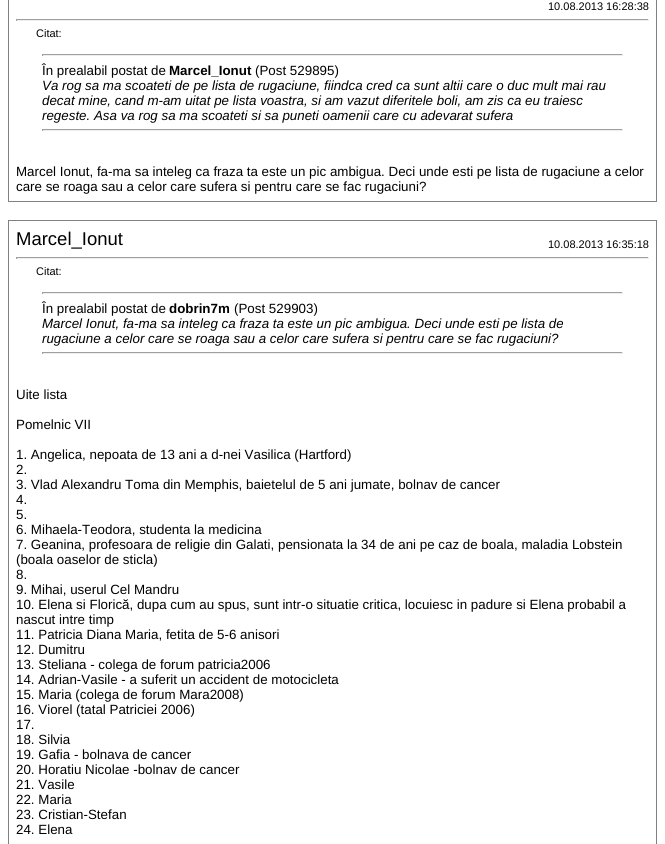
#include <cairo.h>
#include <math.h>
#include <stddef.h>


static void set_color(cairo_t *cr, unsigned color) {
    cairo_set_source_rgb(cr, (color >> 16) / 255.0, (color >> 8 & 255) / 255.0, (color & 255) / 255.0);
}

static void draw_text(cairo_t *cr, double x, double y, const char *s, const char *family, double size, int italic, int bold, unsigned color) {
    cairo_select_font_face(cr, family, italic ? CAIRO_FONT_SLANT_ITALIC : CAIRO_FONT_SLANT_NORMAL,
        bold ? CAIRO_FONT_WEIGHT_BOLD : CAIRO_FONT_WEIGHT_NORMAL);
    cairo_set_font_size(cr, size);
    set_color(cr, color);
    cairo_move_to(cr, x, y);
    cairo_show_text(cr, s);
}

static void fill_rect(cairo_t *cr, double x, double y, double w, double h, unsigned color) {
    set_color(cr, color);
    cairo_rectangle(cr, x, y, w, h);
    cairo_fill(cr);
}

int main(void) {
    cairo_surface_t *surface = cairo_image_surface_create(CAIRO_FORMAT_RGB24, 665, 844);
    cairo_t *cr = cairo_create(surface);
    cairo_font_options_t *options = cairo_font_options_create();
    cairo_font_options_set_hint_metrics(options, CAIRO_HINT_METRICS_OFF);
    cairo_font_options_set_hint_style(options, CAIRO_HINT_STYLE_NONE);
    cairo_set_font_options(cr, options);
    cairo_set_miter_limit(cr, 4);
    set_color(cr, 0xFFFFFF);
    cairo_paint(cr);
    cairo_rectangle(cr, 8.5, -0.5, 648, 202);
    set_color(cr, 0x808080);
    cairo_set_line_width(cr, 1);
    cairo_stroke(cr);
    draw_text(cr, 548, 10, "10.08.2013 16:28:38", "Liberation Sans", 11, 0, 0, 0x000000);
    fill_rect(cr, 16, 19, 633, 1, 0x9F9F9F);
    fill_rect(cr, 648, 19, 1, 2, 0xEEEEEE);
    fill_rect(cr, 16, 20, 633, 1, 0xEEEEEE);
    fill_rect(cr, 16, 19, 1, 2, 0x9F9F9F);
    draw_text(cr, 36, 37, "Citat:", "Liberation Sans", 11, 0, 0, 0x000000);
    fill_rect(cr, 42, 54, 581, 1, 0x9F9F9F);
    fill_rect(cr, 622, 54, 1, 2, 0xEEEEEE);
    fill_rect(cr, 42, 55, 581, 1, 0xEEEEEE);
    fill_rect(cr, 42, 54, 1, 2, 0x9F9F9F);
    draw_text(cr, 42, 75, "În prealabil postat de", "Liberation Sans", 13.35, 0, 0, 0x000000);
    draw_text(cr, 169, 75, "Marcel_Ionut", "Liberation Sans", 13.35, 0, 1, 0x000000);
    draw_text(cr, 255, 75, "(Post 529895)", "Liberation Sans", 13.35, 0, 0, 0x000000);
    draw_text(cr, 42, 90, "Va rog sa ma scoateti de pe lista de rugaciune, fiindca cred ca sunt altii care o duc mult mai rau", "Liberation Sans", 13.35, 1, 0, 0x000000);
    draw_text(cr, 42, 105, "decat mine, cand m-am uitat pe lista voastra, si am vazut diferitele boli, am zis ca eu traiesc", "Liberation Sans", 13.35, 1, 0, 0x000000);
    draw_text(cr, 42, 120, "regeste. Asa va rog sa ma scoateti si sa puneti oamenii care cu adevarat sufera", "Liberation Sans", 13.35, 1, 0, 0x000000);
    fill_rect(cr, 42, 129, 581, 1, 0x9F9F9F);
    fill_rect(cr, 622, 129, 1, 2, 0xEEEEEE);
    fill_rect(cr, 42, 130, 581, 1, 0xEEEEEE);
    fill_rect(cr, 42, 129, 1, 2, 0x9F9F9F);
    draw_text(cr, 16, 176, "Marcel Ionut, fa-ma sa inteleg ca fraza ta este un pic ambigua. Deci unde esti pe lista de rugaciune a celor", "Liberation Sans", 13.35, 0, 0, 0x000000);
    draw_text(cr, 16, 191, "care se roaga sau a celor care sufera si pentru care se fac rugaciuni?", "Liberation Sans", 13.35, 0, 0, 0x000000);
    cairo_rectangle(cr, 8.5, 220.5, 648, 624);
    set_color(cr, 0x808080);
    cairo_stroke(cr);
    draw_text(cr, 16, 245, "Marcel_Ionut", "Liberation Sans", 18.5, 0, 0, 0x000000);
    draw_text(cr, 548, 248, "10.08.2013 16:35:18", "Liberation Sans", 11, 0, 0, 0x000000);
    fill_rect(cr, 16, 257, 633, 1, 0x9F9F9F);
    fill_rect(cr, 648, 257, 1, 2, 0xEEEEEE);
    fill_rect(cr, 16, 258, 633, 1, 0xEEEEEE);
    fill_rect(cr, 16, 257, 1, 2, 0x9F9F9F);
    draw_text(cr, 36, 275, "Citat:", "Liberation Sans", 11, 0, 0, 0x000000);
    fill_rect(cr, 42, 292, 581, 1, 0x9F9F9F);
    fill_rect(cr, 622, 292, 1, 2, 0xEEEEEE);
    fill_rect(cr, 42, 293, 581, 1, 0xEEEEEE);
    fill_rect(cr, 42, 292, 1, 2, 0x9F9F9F);
    draw_text(cr, 42, 313, "În prealabil postat de", "Liberation Sans", 13.35, 0, 0, 0x000000);
    draw_text(cr, 169, 313, "dobrin7m", "Liberation Sans", 13.35, 0, 1, 0x000000);
    draw_text(cr, 234, 313, "(Post 529903)", "Liberation Sans", 13.35, 0, 0, 0x000000);
    draw_text(cr, 42, 328, "Marcel Ionut, fa-ma sa inteleg ca fraza ta este un pic ambigua. Deci unde esti pe lista de", "Liberation Sans", 13.35, 1, 0, 0x000000);
    draw_text(cr, 42, 343, "rugaciune a celor care se roaga sau a celor care sufera si pentru care se fac rugaciuni?", "Liberation Sans", 13.35, 1, 0, 0x000000);
    fill_rect(cr, 42, 352, 581, 1, 0x9F9F9F);
    fill_rect(cr, 622, 352, 1, 2, 0xEEEEEE);
    fill_rect(cr, 42, 353, 581, 1, 0xEEEEEE);
    fill_rect(cr, 42, 352, 1, 2, 0x9F9F9F);
    draw_text(cr, 16, 399, "Uite lista", "Liberation Sans", 13.35, 0, 0, 0x000000);
    draw_text(cr, 16, 429, "Pomelnic VII", "Liberation Sans", 13.35, 0, 0, 0x000000);
    draw_text(cr, 16, 459, "1. Angelica, nepoata de 13 ani a d-nei Vasilica (Hartford)", "Liberation Sans", 13.35, 0, 0, 0x000000);
    draw_text(cr, 16, 474, "2.", "Liberation Sans", 13.35, 0, 0, 0x000000);
    draw_text(cr, 16, 489, "3. Vlad Alexandru Toma din Memphis, baietelul de 5 ani jumate, bolnav de cancer", "Liberation Sans", 13.35, 0, 0, 0x000000);
    draw_text(cr, 16, 504, "4.", "Liberation Sans", 13.35, 0, 0, 0x000000);
    draw_text(cr, 16, 519, "5.", "Liberation Sans", 13.35, 0, 0, 0x000000);
    draw_text(cr, 16, 534, "6. Mihaela-Teodora, studenta la medicina", "Liberation Sans", 13.35, 0, 0, 0x000000);
    draw_text(cr, 16, 549, "7. Geanina, profesoara de religie din Galati, pensionata la 34 de ani pe caz de boala, maladia Lobstein", "Liberation Sans", 13.35, 0, 0, 0x000000);
    draw_text(cr, 16, 564, "(boala oaselor de sticla)", "Liberation Sans", 13.35, 0, 0, 0x000000);
    draw_text(cr, 16, 579, "8.", "Liberation Sans", 13.35, 0, 0, 0x000000);
    draw_text(cr, 16, 594, "9. Mihai, userul Cel Mandru", "Liberation Sans", 13.35, 0, 0, 0x000000);
    draw_text(cr, 16, 609, "10. Elena si Florică, dupa cum au spus, sunt intr-o situatie critica, locuiesc in padure si Elena probabil a", "Liberation Sans", 13.35, 0, 0, 0x000000);
    draw_text(cr, 16, 624, "nascut intre timp", "Liberation Sans", 13.35, 0, 0, 0x000000);
    draw_text(cr, 16, 639, "11. Patricia Diana Maria, fetita de 5-6 anisori", "Liberation Sans", 13.35, 0, 0, 0x000000);
    draw_text(cr, 16, 654, "12. Dumitru", "Liberation Sans", 13.35, 0, 0, 0x000000);
    draw_text(cr, 16, 669, "13. Steliana - colega de forum patricia2006", "Liberation Sans", 13.35, 0, 0, 0x000000);
    draw_text(cr, 16, 684, "14. Adrian-Vasile - a suferit un accident de motocicleta", "Liberation Sans", 13.35, 0, 0, 0x000000);
    draw_text(cr, 16, 699, "15. Maria (colega de forum Mara2008)", "Liberation Sans", 13.35, 0, 0, 0x000000);
    draw_text(cr, 16, 714, "16. Viorel (tatal Patriciei 2006)", "Liberation Sans", 13.35, 0, 0, 0x000000);
    draw_text(cr, 16, 729, "17.", "Liberation Sans", 13.35, 0, 0, 0x000000);
    draw_text(cr, 16, 744, "18. Silvia", "Liberation Sans", 13.35, 0, 0, 0x000000);
    draw_text(cr, 16, 759, "19. Gafia - bolnava de cancer", "Liberation Sans", 13.35, 0, 0, 0x000000);
    draw_text(cr, 16, 774, "20. Horatiu Nicolae -bolnav de cancer", "Liberation Sans", 13.35, 0, 0, 0x000000);
    draw_text(cr, 16, 789, "21. Vasile", "Liberation Sans", 13.35, 0, 0, 0x000000);
    draw_text(cr, 16, 804, "22. Maria", "Liberation Sans", 13.35, 0, 0, 0x000000);
    draw_text(cr, 16, 819, "23. Cristian-Stefan", "Liberation Sans", 13.35, 0, 0, 0x000000);
    draw_text(cr, 16, 834, "24. Elena", "Liberation Sans", 13.35, 0, 0, 0x000000);
    cairo_surface_write_to_png(surface, "output.png");
    cairo_font_options_destroy(options);
    cairo_destroy(cr);
    cairo_surface_destroy(surface);
    return 0;
}
